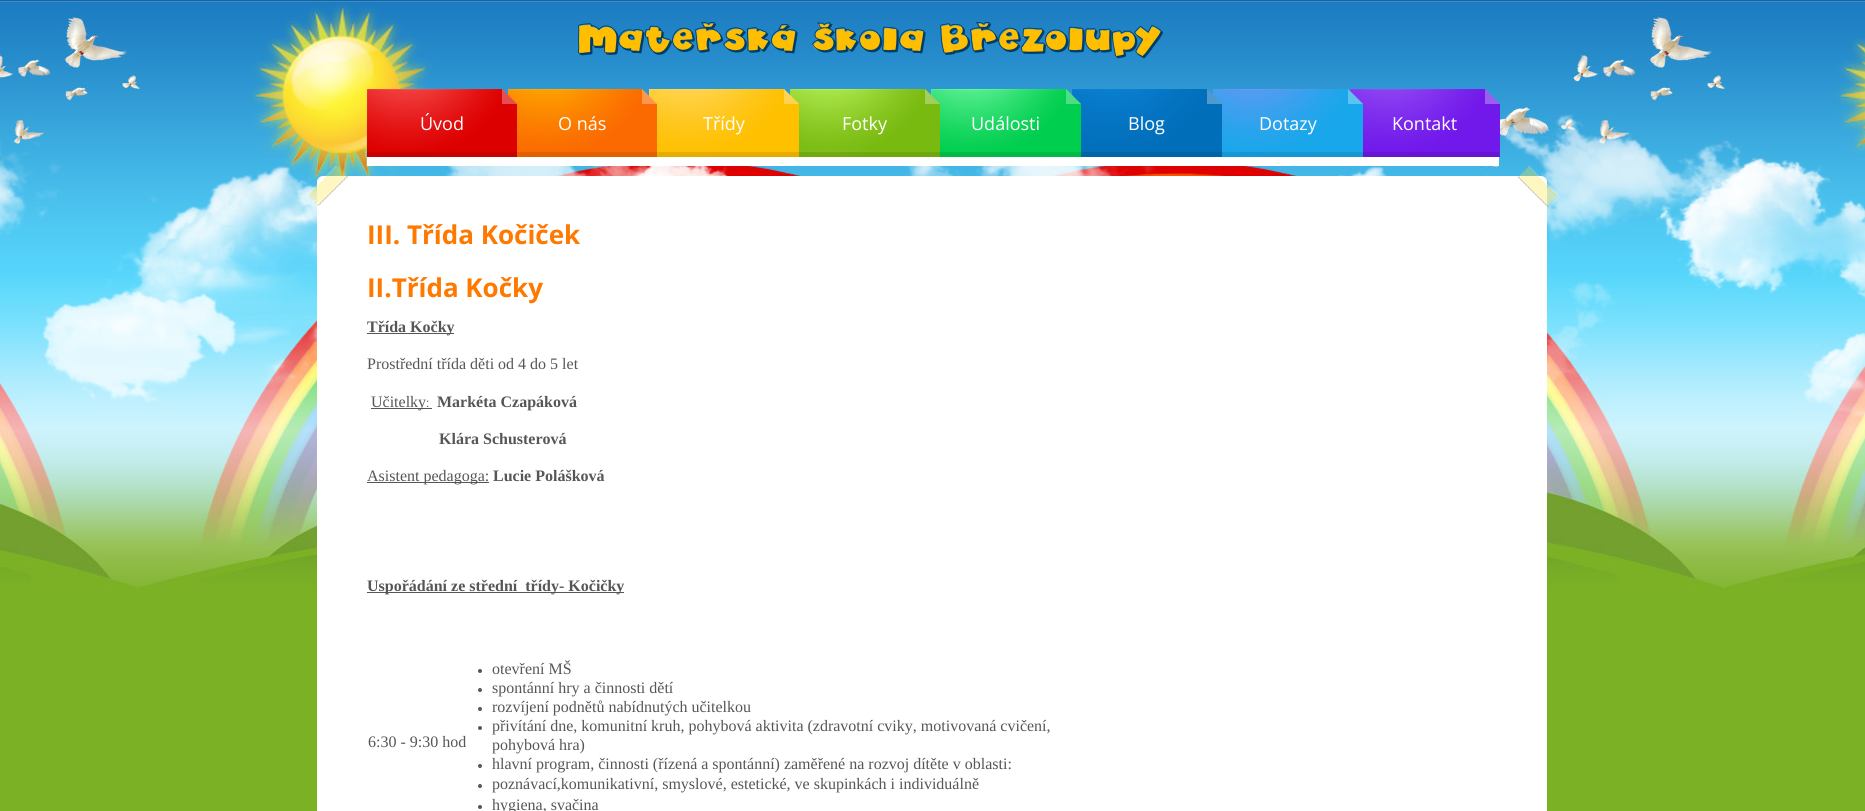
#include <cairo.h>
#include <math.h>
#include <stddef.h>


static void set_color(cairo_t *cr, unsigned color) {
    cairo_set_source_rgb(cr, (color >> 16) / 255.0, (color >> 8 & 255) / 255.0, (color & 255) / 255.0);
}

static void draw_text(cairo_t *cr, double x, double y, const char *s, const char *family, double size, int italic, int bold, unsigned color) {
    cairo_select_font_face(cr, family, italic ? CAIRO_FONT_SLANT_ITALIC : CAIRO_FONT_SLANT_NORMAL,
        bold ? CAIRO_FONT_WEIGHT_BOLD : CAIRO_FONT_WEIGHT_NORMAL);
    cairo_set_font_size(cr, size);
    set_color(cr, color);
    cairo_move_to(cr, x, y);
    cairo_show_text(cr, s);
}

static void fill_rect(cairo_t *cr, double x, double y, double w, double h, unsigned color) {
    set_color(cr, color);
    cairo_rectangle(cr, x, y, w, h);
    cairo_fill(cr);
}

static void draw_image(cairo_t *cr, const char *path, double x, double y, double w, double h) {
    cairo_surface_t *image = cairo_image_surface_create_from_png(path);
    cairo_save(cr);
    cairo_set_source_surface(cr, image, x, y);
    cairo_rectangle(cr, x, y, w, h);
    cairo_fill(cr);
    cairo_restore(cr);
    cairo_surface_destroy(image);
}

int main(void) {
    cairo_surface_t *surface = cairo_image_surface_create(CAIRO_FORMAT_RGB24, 1865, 811);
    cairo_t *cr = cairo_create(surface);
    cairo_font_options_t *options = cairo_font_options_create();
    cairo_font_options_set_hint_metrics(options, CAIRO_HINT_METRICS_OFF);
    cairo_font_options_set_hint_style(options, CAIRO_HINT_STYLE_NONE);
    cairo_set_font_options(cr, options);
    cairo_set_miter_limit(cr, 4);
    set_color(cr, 0x7BB125);
    cairo_paint(cr);
    draw_image(cr, "assets/img1.png", 0, 0, 1865, 589);
    draw_image(cr, "assets/img2.png", 578, 22, 585, 37);
    draw_image(cr, "assets/img12.png", 0, 114, 1865, 303);
    fill_rect(cr, 367, 157, 1132, 9, 0xFFFFFF);
    draw_image(cr, "assets/img10.png", 1350, 89, 150, 68);
    draw_image(cr, "assets/img9.png", 1213, 89, 150, 68);
    draw_image(cr, "assets/img8.png", 1072, 89, 150, 68);
    draw_image(cr, "assets/img7.png", 931, 89, 150, 68);
    draw_image(cr, "assets/img6.png", 790, 89, 150, 68);
    draw_image(cr, "assets/img5.png", 649, 89, 150, 68);
    draw_image(cr, "assets/img4.png", 508, 89, 149, 68);
    draw_image(cr, "assets/img3.png", 367, 89, 150, 68);
    draw_text(cr, 420, 130, "Úvod", "Open Sans", 18, 0, 0, 0xFFFFFF);
    draw_text(cr, 558, 130, "O nás", "Open Sans", 18, 0, 0, 0xFFFFFF);
    draw_text(cr, 703, 130, "Třídy", "Open Sans", 18, 0, 0, 0xFFFFFF);
    draw_text(cr, 842, 130, "Fotky", "Open Sans", 18, 0, 0, 0xFFFFFF);
    draw_text(cr, 971, 130, "Události", "Open Sans", 18, 0, 0, 0xFFFFFF);
    draw_text(cr, 1128, 130, "Blog", "Open Sans", 18, 0, 0, 0xFFFFFF);
    draw_text(cr, 1259, 130, "Dotazy", "Open Sans", 18, 0, 0, 0xFFFFFF);
    draw_text(cr, 1392, 130, "Kontakt", "Open Sans", 18, 0, 0, 0xFFFFFF);
    cairo_set_source_rgba(cr, 0, 0, 0, 0.1);
    cairo_rectangle(cr, 367, 152, 1132, 5);
    cairo_fill(cr);
    draw_image(cr, "assets/img11.png", 308, 166, 1250, 46);
    fill_rect(cr, 317, 212, 1230, 599, 0xFFFFFF);
    draw_text(cr, 367, 244, "III. Třída Kočiček", "Open Sans", 26, 0, 1, 0xFF7800);
    draw_text(cr, 367, 297, "II.Třída Kočky", "Open Sans", 26, 0, 1, 0xFF7800);
    fill_rect(cr, 367, 333, 87, 1, 0x565656);
    cairo_save(cr);
    cairo_rectangle(cr, 367, 262, 1132, 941);
    cairo_clip(cr);
    draw_text(cr, 367, 332, "Třída Kočky", "Liberation Serif", 16, 0, 1, 0x565656);
    cairo_restore(cr);
    draw_text(cr, 367, 369, "Prostřední třída děti od 4 do 5 let", "Liberation Serif", 16, 0, 0, 0x565656);
    fill_rect(cr, 371, 408, 61, 1, 0x565656);
    draw_text(cr, 371, 407, "Učitelky", "Liberation Serif", 16, 0, 0, 0x565656);
    draw_text(cr, 426, 407, ":", "Liberation Sans", 12, 0, 0, 0x565656);
    draw_text(cr, 437, 407, "Markéta Czapáková", "Liberation Serif", 16, 0, 1, 0x565656);
    draw_text(cr, 439, 444, "Klára Schusterová", "Liberation Serif", 16, 0, 1, 0x565656);
    fill_rect(cr, 367, 482, 122, 1, 0x565656);
    draw_text(cr, 367, 481, "Asistent pedagoga:", "Liberation Serif", 16, 0, 0, 0x565656);
    draw_text(cr, 493, 481, "Lucie Polášková", "Liberation Serif", 16, 0, 1, 0x565656);
    fill_rect(cr, 367, 592, 257, 1, 0x565656);
    draw_text(cr, 367, 591, "Uspořádání ze střední  třídy- Kočičky", "Liberation Serif", 16, 0, 1, 0x565656);
    draw_text(cr, 368, 747, "6:30 - 9:30 hod", "Liberation Serif", 16, 0, 0, 0x565656);
    cairo_new_path(cr);
    cairo_arc(cr, 480, 671, 2, 0, 2 * M_PI);
    cairo_fill(cr);
    draw_text(cr, 492, 674, "otevření MŠ", "Liberation Serif", 16, 0, 0, 0x565656);
    cairo_new_path(cr);
    cairo_arc(cr, 480, 690, 2, 0, 2 * M_PI);
    cairo_fill(cr);
    draw_text(cr, 492, 693, "spontánní hry a činnosti dětí", "Liberation Serif", 16, 0, 0, 0x565656);
    cairo_new_path(cr);
    cairo_arc(cr, 480, 709, 2, 0, 2 * M_PI);
    cairo_fill(cr);
    draw_text(cr, 492, 712, "rozvíjení podnětů nabídnutých učitelkou", "Liberation Serif", 16, 0, 0, 0x565656);
    cairo_new_path(cr);
    cairo_arc(cr, 480, 728, 2, 0, 2 * M_PI);
    cairo_fill(cr);
    draw_text(cr, 492, 731, "přivítání dne, komunitní kruh, pohybová aktivita (zdravotní cviky, motivovaná cvičení,", "Liberation Serif", 16, 0, 0, 0x565656);
    draw_text(cr, 492, 750, "pohybová hra)", "Liberation Serif", 16, 0, 0, 0x565656);
    cairo_new_path(cr);
    cairo_arc(cr, 480, 766, 2, 0, 2 * M_PI);
    cairo_fill(cr);
    draw_text(cr, 492, 769, "hlavní program, činnosti (řízená a spontánní) zaměřené na rozvoj dítěte v oblasti:", "Liberation Serif", 16, 0, 0, 0x565656);
    cairo_new_path(cr);
    cairo_arc(cr, 480, 786, 2, 0, 2 * M_PI);
    cairo_fill(cr);
    draw_text(cr, 492, 789, "poznávací,komunikativní, smyslové, estetické, ve skupinkách i individuálně", "Liberation Serif", 16, 0, 0, 0x565656);
    cairo_new_path(cr);
    cairo_arc(cr, 480, 807, 2, 0, 2 * M_PI);
    cairo_fill(cr);
    draw_text(cr, 492, 810, "hygiena, svačina", "Liberation Serif", 16, 0, 0, 0x565656);
    cairo_surface_write_to_png(surface, "output.png");
    cairo_font_options_destroy(options);
    cairo_destroy(cr);
    cairo_surface_destroy(surface);
    return 0;
}
